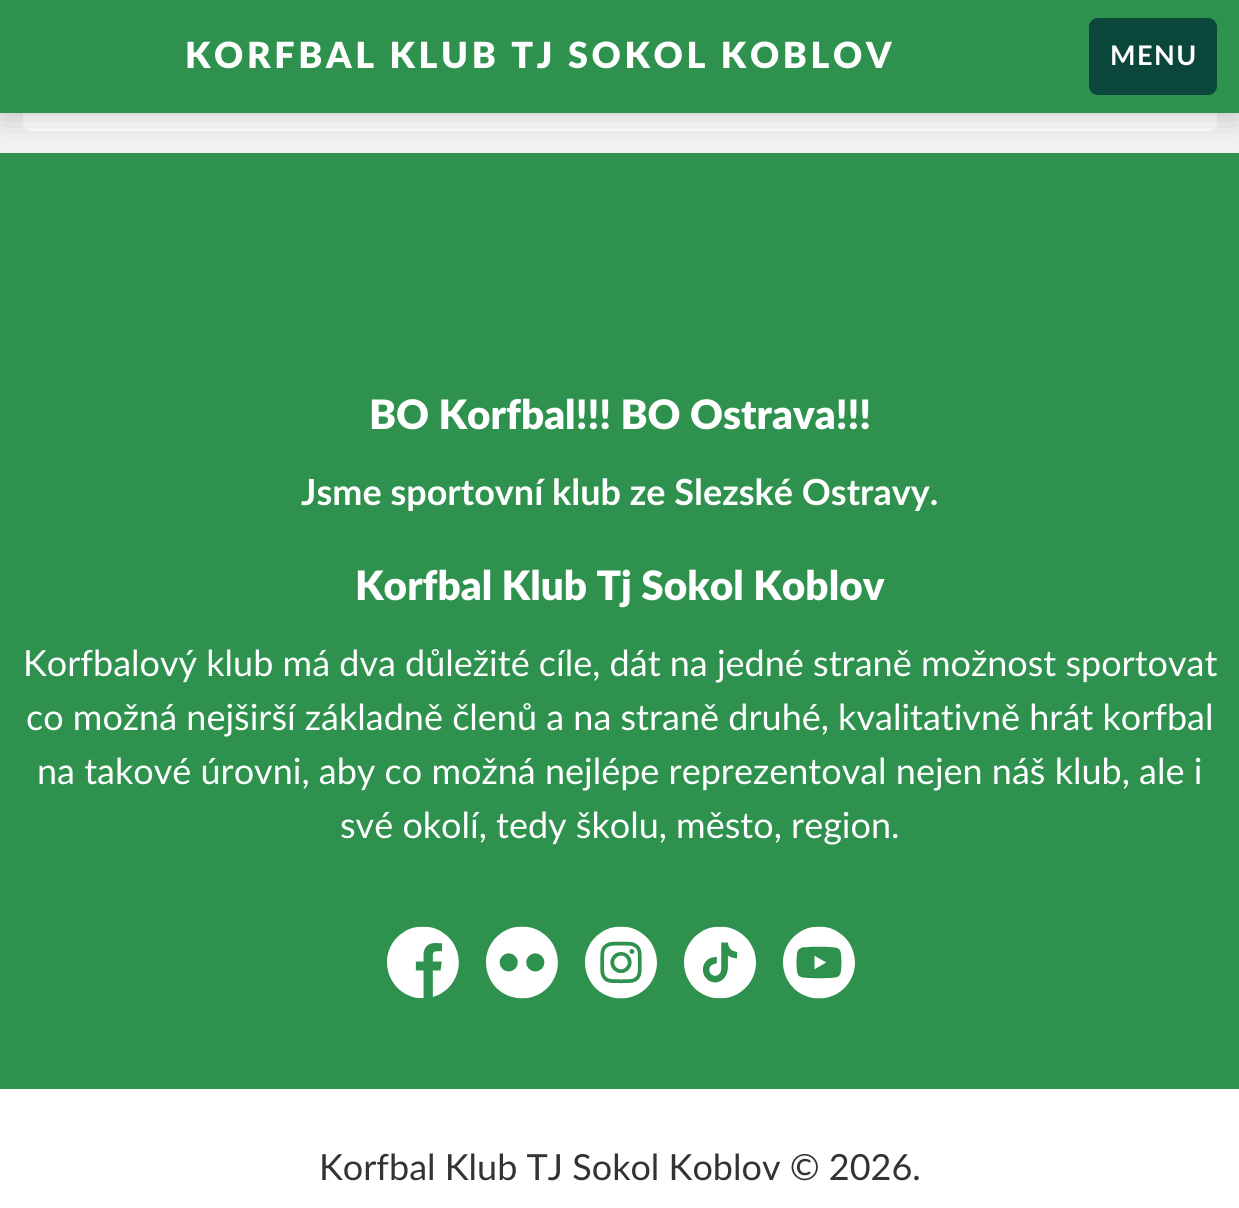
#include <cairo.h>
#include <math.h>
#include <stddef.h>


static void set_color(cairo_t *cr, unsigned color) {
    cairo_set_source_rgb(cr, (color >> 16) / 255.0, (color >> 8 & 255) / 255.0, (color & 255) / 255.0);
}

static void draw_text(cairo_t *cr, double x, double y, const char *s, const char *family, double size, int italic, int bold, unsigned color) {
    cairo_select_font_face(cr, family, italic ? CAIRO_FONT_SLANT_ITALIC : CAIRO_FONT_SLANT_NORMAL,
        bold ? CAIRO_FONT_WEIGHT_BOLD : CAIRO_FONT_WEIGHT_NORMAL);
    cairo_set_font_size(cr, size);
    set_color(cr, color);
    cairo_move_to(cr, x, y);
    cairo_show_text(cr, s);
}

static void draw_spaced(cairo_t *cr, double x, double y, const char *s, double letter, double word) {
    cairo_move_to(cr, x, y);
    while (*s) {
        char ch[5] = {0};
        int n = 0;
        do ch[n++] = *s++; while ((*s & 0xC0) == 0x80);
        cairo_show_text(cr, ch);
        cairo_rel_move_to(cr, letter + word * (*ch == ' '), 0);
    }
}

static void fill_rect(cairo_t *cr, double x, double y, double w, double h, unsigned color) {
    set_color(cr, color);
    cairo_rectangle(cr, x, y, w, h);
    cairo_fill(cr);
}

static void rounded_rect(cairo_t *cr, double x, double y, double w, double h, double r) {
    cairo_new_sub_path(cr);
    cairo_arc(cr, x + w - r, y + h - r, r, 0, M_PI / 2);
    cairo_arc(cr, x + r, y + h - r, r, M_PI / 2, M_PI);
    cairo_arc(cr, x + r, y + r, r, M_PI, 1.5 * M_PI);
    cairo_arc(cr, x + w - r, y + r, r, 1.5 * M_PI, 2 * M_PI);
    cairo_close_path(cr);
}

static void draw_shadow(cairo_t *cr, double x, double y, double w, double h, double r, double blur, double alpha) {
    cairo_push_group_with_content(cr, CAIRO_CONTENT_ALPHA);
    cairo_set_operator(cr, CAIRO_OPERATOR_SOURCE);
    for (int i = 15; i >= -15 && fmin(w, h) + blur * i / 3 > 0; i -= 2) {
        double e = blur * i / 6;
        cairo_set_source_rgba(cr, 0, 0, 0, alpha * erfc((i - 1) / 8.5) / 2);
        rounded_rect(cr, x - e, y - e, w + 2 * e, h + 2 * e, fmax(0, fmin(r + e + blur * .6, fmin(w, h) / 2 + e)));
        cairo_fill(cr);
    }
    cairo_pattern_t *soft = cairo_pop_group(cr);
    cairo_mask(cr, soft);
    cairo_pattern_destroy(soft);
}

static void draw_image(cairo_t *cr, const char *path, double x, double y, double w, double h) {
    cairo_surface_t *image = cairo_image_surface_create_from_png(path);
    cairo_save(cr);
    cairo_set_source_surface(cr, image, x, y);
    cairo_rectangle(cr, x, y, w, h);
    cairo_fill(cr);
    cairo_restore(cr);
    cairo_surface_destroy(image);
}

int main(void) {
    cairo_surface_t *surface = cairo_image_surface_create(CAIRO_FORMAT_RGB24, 1239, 1208);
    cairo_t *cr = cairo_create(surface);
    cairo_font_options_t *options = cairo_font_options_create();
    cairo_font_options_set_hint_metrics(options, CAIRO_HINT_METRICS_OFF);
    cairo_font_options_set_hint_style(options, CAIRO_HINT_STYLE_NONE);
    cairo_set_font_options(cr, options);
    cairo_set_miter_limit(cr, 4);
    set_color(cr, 0xF3F3F3);
    cairo_paint(cr);
    set_color(cr, 0xFFFFFF);
    rounded_rect(cr, 23, -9, 1194, 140, 9);
    cairo_fill(cr);
    fill_rect(cr, 0, 153, 1239, 936, 0x2E924E);
    set_color(cr, 0x000000);
    draw_shadow(cr, 0, 0, 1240, 113, 0, 18, 0.25);
    fill_rect(cr, 0, 0, 1239, 113, 0x2E924E);
    cairo_select_font_face(cr, "Lato Black", CAIRO_FONT_SLANT_NORMAL, CAIRO_FONT_WEIGHT_NORMAL);
    cairo_set_font_size(cr, 36);
    set_color(cr, 0xFFFFFF);
    draw_spaced(cr, 185, 68, "KORFBAL KLUB TJ SOKOL KOBLOV", 3.6, 0);
    set_color(cr, 0x0A473A);
    rounded_rect(cr, 1089, 18, 128, 77, 9);
    cairo_fill(cr);
    cairo_select_font_face(cr, "Lato", CAIRO_FONT_SLANT_NORMAL, CAIRO_FONT_WEIGHT_BOLD);
    cairo_set_font_size(cr, 27);
    set_color(cr, 0xFFFFFF);
    draw_spaced(cr, 1110, 65, "MENU", 1.5, 0);
    draw_text(cr, 369, 429, "BO Korfbal!!! BO Ostrava!!!", "Lato Black", 40.5, 0, 0, 0xFFFFFF);
    draw_text(cr, 301, 505, "Jsme sportovní klub ze Slezské Ostravy.", "Lato", 36, 0, 1, 0xFFFFFF);
    draw_text(cr, 355, 600, "Korfbal Klub Tj Sokol Koblov", "Lato Black", 40.5, 0, 0, 0xFFFFFF);
    draw_text(cr, 23, 676, "Korfbalový klub má dva důležité cíle, dát na jedné straně možnost sportovat", "Lato", 36, 0, 0, 0xFFFFFF);
    draw_text(cr, 26, 730, "co možná nejširší základně členů a na straně druhé, kvalitativně hrát korfbal", "Lato", 36, 0, 0, 0xFFFFFF);
    draw_text(cr, 37, 784, "na takové úrovni, aby co možná nejlépe reprezentoval nejen náš klub, ale i", "Lato", 36, 0, 0, 0xFFFFFF);
    draw_text(cr, 340, 838, "své okolí, tedy školu, město, region.", "Lato", 36, 0, 0, 0xFFFFFF);
    draw_image(cr, "assets/img1.png", 387, 926, 72, 73);
    draw_image(cr, "assets/img2.png", 486, 926, 72, 73);
    draw_image(cr, "assets/img3.png", 585, 926, 72, 73);
    draw_image(cr, "assets/img4.png", 684, 926, 72, 73);
    draw_image(cr, "assets/img5.png", 783, 926, 72, 73);
    fill_rect(cr, 0, 1089, 1239, 119, 0xFFFFFF);
    draw_text(cr, 319, 1180, "Korfbal Klub TJ Sokol Koblov © 2026.", "Lato", 36, 0, 0, 0x333333);
    cairo_surface_write_to_png(surface, "output.png");
    cairo_font_options_destroy(options);
    cairo_destroy(cr);
    cairo_surface_destroy(surface);
    return 0;
}
